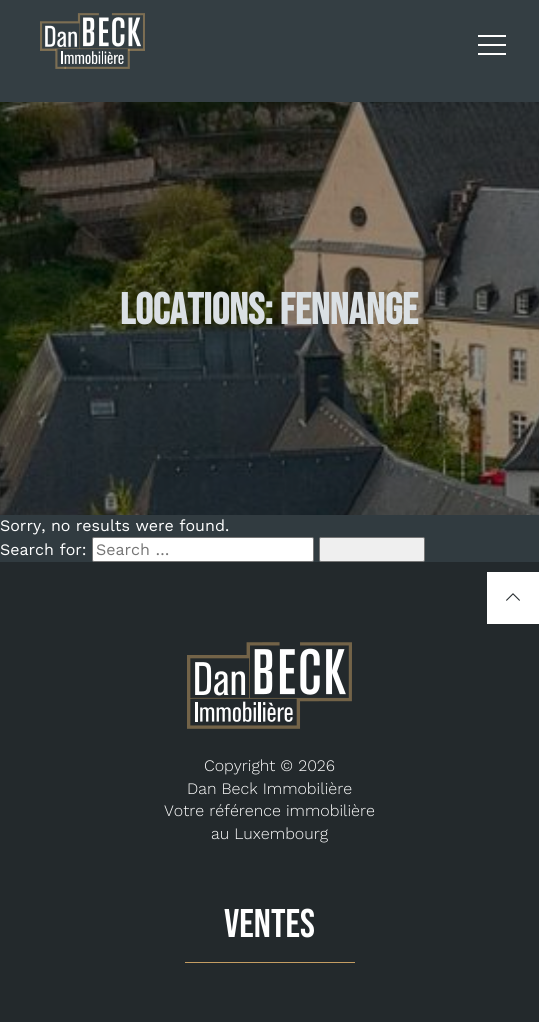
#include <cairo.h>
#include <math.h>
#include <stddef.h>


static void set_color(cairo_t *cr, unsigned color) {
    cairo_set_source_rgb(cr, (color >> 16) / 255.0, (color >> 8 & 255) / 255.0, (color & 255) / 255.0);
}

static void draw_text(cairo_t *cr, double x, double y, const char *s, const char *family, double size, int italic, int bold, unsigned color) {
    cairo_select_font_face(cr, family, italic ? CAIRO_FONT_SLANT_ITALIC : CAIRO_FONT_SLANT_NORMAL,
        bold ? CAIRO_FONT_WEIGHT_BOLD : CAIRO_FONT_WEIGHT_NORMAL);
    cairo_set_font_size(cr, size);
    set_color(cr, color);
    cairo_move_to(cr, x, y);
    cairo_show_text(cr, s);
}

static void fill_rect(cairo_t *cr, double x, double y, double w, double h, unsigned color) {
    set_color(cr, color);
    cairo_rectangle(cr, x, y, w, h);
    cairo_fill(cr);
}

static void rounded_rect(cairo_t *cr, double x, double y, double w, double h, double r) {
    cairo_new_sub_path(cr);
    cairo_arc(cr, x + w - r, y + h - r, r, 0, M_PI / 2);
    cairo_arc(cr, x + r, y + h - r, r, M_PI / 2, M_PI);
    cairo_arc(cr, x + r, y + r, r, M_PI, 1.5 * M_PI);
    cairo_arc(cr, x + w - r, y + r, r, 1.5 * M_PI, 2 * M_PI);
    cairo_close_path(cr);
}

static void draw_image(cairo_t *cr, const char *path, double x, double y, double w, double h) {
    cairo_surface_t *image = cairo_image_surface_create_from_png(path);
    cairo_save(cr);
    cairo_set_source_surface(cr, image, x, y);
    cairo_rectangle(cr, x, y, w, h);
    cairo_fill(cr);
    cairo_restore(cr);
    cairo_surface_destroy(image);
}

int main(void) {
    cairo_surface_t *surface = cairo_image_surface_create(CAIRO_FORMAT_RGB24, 539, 1022);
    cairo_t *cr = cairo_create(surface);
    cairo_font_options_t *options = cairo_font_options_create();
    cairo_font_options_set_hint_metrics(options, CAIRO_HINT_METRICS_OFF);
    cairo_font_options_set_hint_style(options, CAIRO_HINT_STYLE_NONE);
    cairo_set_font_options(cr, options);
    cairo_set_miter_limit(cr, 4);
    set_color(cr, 0x313B40);
    cairo_paint(cr);
    fill_rect(cr, 0, 0, 539, 102, 0x343E43);
    draw_image(cr, "assets/img1.png", 40, 13, 105, 56);
    fill_rect(cr, 478, 44, 28, 2, 0xFFFFFF);
    fill_rect(cr, 478, 35, 28, 2, 0xFFFFFF);
    fill_rect(cr, 478, 53, 28, 2, 0xFFFFFF);
    draw_image(cr, "assets/img2.png", 0, 102, 539, 413);
    draw_text(cr, 120, 324, "LOCATIONS: FENNANGE", "Bebas Neue", 44, 0, 1, 0xDAE0E4);
    draw_text(cr, 0, 531, "Sorry, no results were found.", "Work Sans", 16, 0, 0, 0xFFFFFF);
    draw_text(cr, 0, 555, "Search for:", "Work Sans", 16, 0, 0, 0xFFFFFF);
    rounded_rect(cr, 92.5, 537.5, 221, 24, 1.5);
    cairo_fill_preserve(cr);
    set_color(cr, 0x767676);
    cairo_set_line_width(cr, 1);
    cairo_stroke(cr);
    draw_text(cr, 96, 555, "Search …", "Work Sans", 16, 0, 0, 0x757575);
    set_color(cr, 0xEFEFEF);
    rounded_rect(cr, 319.5, 537.5, 105, 24, 1.5);
    cairo_fill_preserve(cr);
    set_color(cr, 0x767676);
    cairo_stroke(cr);
    fill_rect(cr, 0, 562, 539, 460, 0x23292C);
    fill_rect(cr, 487, 572, 52, 52, 0xFFFFFF);
    draw_image(cr, "assets/img3.png", 506, 593, 14, 8);
    draw_image(cr, "assets/img4.png", 187, 642, 165, 87);
    draw_text(cr, 204, 771, "Copyright © 2026", "Work Sans Light", 16, 0, 0, 0xFFFFFF);
    draw_text(cr, 187, 794, "Dan Beck Immobilière", "Work Sans Light", 16, 0, 0, 0xFFFFFF);
    draw_text(cr, 164, 816, "Votre référence immobilière", "Work Sans Light", 16, 0, 0, 0xFFFFFF);
    draw_text(cr, 211, 839, "au Luxembourg", "Work Sans Light", 16, 0, 0, 0xFFFFFF);
    draw_text(cr, 224, 937, "VENTES", "Bebas Neue", 40, 0, 0, 0xFFFFFF);
    fill_rect(cr, 185, 962, 170, 1, 0xC49D63);
    cairo_surface_write_to_png(surface, "output.png");
    cairo_font_options_destroy(options);
    cairo_destroy(cr);
    cairo_surface_destroy(surface);
    return 0;
}
